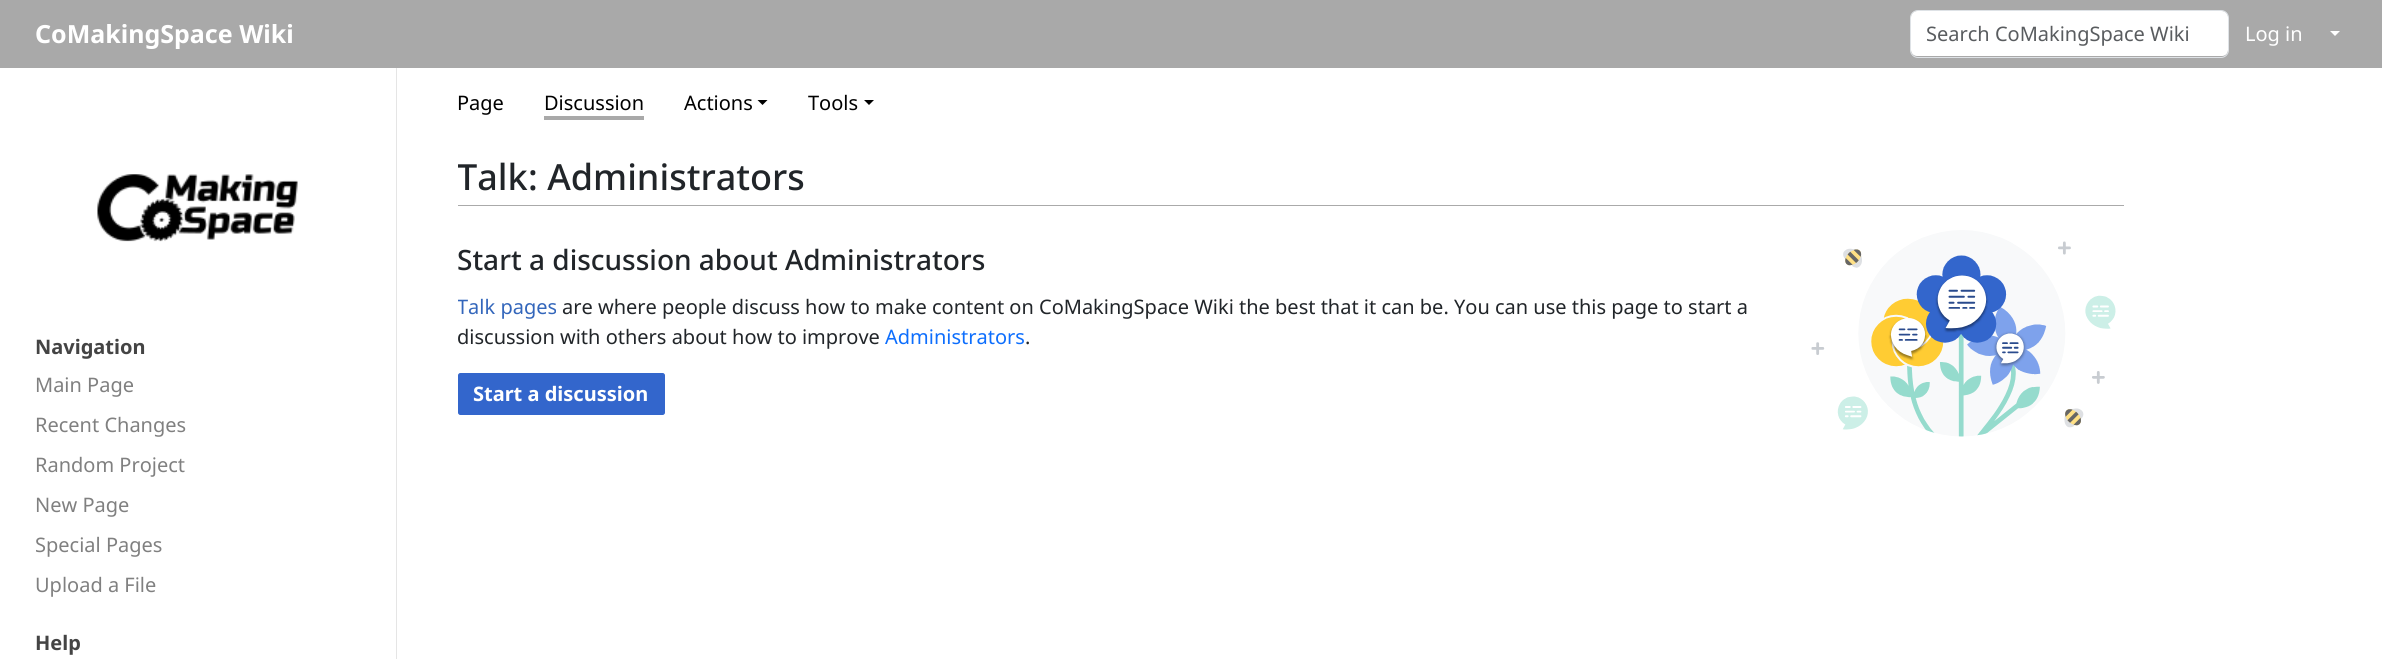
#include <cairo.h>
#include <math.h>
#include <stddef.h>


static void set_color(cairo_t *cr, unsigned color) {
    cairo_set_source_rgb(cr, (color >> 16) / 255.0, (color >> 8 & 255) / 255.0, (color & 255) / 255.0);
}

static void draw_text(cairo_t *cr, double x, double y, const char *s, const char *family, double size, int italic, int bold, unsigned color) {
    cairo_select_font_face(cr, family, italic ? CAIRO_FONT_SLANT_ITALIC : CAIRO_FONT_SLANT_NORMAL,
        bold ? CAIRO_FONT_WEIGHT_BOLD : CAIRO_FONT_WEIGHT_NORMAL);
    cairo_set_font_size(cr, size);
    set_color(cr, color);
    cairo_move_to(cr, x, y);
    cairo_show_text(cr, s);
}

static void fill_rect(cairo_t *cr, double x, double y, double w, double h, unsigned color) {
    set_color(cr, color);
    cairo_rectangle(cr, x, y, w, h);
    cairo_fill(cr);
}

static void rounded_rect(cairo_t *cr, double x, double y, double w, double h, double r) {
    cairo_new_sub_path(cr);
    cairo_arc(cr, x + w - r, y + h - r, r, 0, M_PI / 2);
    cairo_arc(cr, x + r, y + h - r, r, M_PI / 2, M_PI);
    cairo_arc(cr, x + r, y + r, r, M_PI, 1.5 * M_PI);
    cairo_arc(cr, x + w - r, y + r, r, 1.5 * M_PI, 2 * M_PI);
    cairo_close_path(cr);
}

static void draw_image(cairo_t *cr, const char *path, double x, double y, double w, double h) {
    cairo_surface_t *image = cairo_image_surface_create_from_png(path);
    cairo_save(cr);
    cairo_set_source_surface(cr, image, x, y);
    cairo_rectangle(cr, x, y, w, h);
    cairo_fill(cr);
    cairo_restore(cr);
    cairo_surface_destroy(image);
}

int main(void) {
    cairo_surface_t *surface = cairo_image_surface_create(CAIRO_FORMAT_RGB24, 2382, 659);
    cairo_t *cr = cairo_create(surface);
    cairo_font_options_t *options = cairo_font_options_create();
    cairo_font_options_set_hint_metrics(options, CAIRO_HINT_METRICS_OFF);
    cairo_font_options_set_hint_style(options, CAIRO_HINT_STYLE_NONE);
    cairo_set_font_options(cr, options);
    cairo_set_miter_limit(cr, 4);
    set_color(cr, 0xFFFFFF);
    cairo_paint(cr);
    fill_rect(cr, 0, 0, 2382, 68, 0xA9A9A9);
    draw_text(cr, 35, 43, "CoMakingSpace Wiki", "Noto Sans", 25, 0, 1, 0xFFFFFF);
    rounded_rect(cr, 1911, 11, 317, 45, 6);
    cairo_fill(cr);
    rounded_rect(cr, 1910.5, 10.5, 318, 47, 7.5);
    set_color(cr, 0xDEE2E6);
    cairo_set_line_width(cr, 1);
    cairo_stroke(cr);
    draw_text(cr, 1926, 41, "Search CoMakingSpace Wiki", "Noto Sans", 20, 0, 0, 0x595C5F);
    draw_text(cr, 2245, 41, "Log in", "Noto Sans", 20, 0, 0, 0xFFFFFF);
    cairo_new_path(cr);
    cairo_move_to(cr, 2330, 31);
    cairo_line_to(cr, 2340, 31);
    cairo_line_to(cr, 2335, 36);
    cairo_close_path(cr);
    cairo_fill(cr);
    draw_text(cr, 457, 110, "Page", "Noto Sans", 20, 0, 0, 0x000000);
    draw_text(cr, 544, 110, "Discussion", "Noto Sans", 20, 0, 0, 0x000000);
    fill_rect(cr, 544, 116, 100, 4, 0xA9A9A9);
    draw_text(cr, 684, 110, "Actions", "Noto Sans", 20, 0, 0, 0x000000);
    cairo_new_path(cr);
    cairo_move_to(cr, 757.5, 100);
    cairo_line_to(cr, 767.5, 100);
    cairo_line_to(cr, 762.5, 105);
    cairo_close_path(cr);
    cairo_fill(cr);
    draw_text(cr, 808, 110, "Tools", "Noto Sans", 20, 0, 0, 0x000000);
    cairo_new_path(cr);
    cairo_move_to(cr, 864, 100);
    cairo_line_to(cr, 874, 100);
    cairo_line_to(cr, 869, 105);
    cairo_close_path(cr);
    cairo_fill(cr);
    fill_rect(cr, 458, 205, 1666, 1, 0xAAAAAA);
    cairo_save(cr);
    cairo_rectangle(cr, 458, 118, 1666, 360);
    cairo_clip(cr);
    draw_text(cr, 457, 190, "Talk", "Noto Sans Medium", 36, 0, 0, 0x212529);
    cairo_restore(cr);
    draw_text(cr, 528, 190, ": Administrators", "Noto Sans Medium", 36, 0, 0, 0x212529);
    draw_text(cr, 457, 270, "Start a discussion about Administrators", "Noto Sans Medium", 28, 0, 0, 0x212529);
    cairo_save(cr);
    cairo_rectangle(cr, 458, 118, 1666, 360);
    cairo_clip(cr);
    draw_text(cr, 457, 314, "Talk pages", "Noto Sans", 20, 0, 0, 0x3366BB);
    cairo_restore(cr);
    draw_text(cr, 562, 314, "are where people discuss how to make content on CoMakingSpace Wiki the best that it can be. You can use this page to start a", "Noto Sans", 20, 0, 0, 0x212529);
    draw_text(cr, 457, 344, "discussion with others about how to improve", "Noto Sans", 20, 0, 0, 0x212529);
    draw_text(cr, 885, 344, "Administrators", "Noto Sans", 20, 0, 0, 0x0D6EFD);
    draw_text(cr, 1025, 344, ".", "Noto Sans", 20, 0, 0, 0x212529);
    set_color(cr, 0x3366CC);
    rounded_rect(cr, 458.5, 373.5, 206, 41, 2);
    cairo_fill_preserve(cr);
    cairo_stroke(cr);
    draw_text(cr, 473, 401, "Start a discussion", "Noto Sans", 20, 0, 1, 0xFFFFFF);
    draw_image(cr, "assets/img1.png", 1811, 230, 305, 207);
    fill_rect(cr, 396, 68, 1, 591, 0xE5E5E5);
    draw_image(cr, "assets/img2.png", 97, 174, 201, 68);
    draw_text(cr, 35, 354, "Navigation", "Noto Sans", 20, 0, 1, 0x444444);
    draw_text(cr, 35, 392, "Main Page", "Noto Sans", 20, 0, 0, 0x808080);
    draw_text(cr, 35, 432, "Recent Changes", "Noto Sans", 20, 0, 0, 0x808080);
    draw_text(cr, 35, 472, "Random Project", "Noto Sans", 20, 0, 0, 0x808080);
    draw_text(cr, 35, 512, "New Page", "Noto Sans", 20, 0, 0, 0x808080);
    draw_text(cr, 35, 552, "Special Pages", "Noto Sans", 20, 0, 0, 0x808080);
    draw_text(cr, 35, 592, "Upload a File", "Noto Sans", 20, 0, 0, 0x808080);
    draw_text(cr, 35, 650, "Help", "Noto Sans", 20, 0, 1, 0x444444);
    cairo_surface_write_to_png(surface, "output.png");
    cairo_font_options_destroy(options);
    cairo_destroy(cr);
    cairo_surface_destroy(surface);
    return 0;
}
